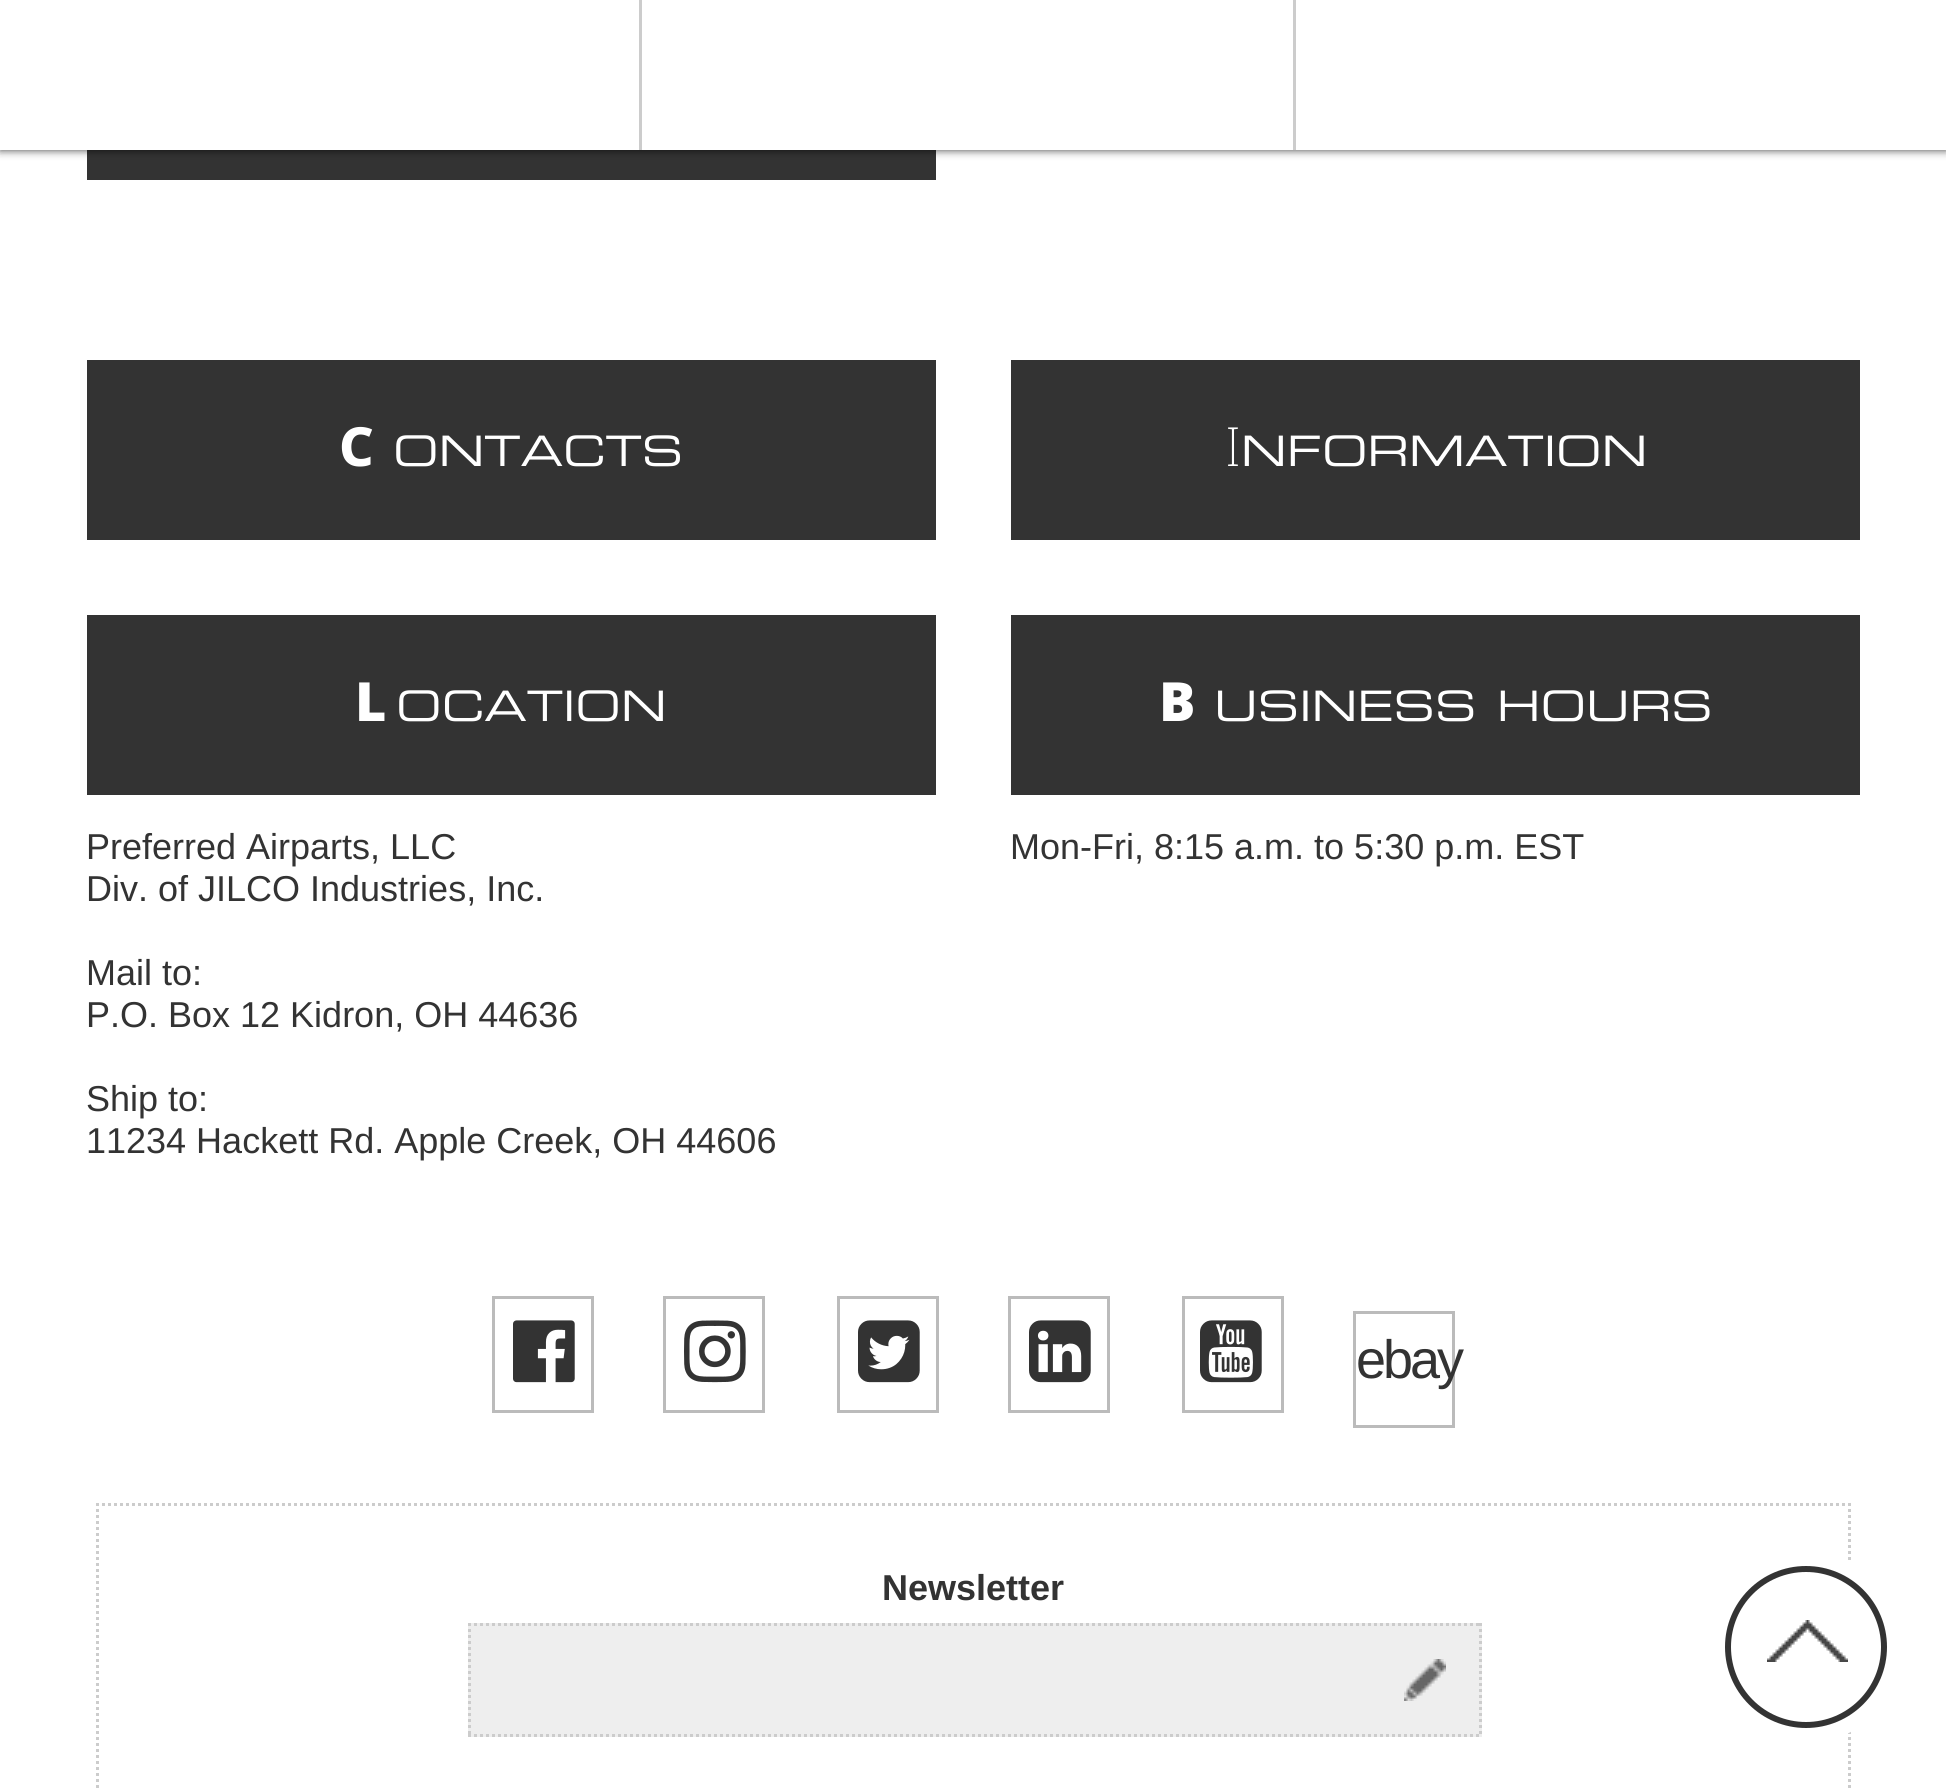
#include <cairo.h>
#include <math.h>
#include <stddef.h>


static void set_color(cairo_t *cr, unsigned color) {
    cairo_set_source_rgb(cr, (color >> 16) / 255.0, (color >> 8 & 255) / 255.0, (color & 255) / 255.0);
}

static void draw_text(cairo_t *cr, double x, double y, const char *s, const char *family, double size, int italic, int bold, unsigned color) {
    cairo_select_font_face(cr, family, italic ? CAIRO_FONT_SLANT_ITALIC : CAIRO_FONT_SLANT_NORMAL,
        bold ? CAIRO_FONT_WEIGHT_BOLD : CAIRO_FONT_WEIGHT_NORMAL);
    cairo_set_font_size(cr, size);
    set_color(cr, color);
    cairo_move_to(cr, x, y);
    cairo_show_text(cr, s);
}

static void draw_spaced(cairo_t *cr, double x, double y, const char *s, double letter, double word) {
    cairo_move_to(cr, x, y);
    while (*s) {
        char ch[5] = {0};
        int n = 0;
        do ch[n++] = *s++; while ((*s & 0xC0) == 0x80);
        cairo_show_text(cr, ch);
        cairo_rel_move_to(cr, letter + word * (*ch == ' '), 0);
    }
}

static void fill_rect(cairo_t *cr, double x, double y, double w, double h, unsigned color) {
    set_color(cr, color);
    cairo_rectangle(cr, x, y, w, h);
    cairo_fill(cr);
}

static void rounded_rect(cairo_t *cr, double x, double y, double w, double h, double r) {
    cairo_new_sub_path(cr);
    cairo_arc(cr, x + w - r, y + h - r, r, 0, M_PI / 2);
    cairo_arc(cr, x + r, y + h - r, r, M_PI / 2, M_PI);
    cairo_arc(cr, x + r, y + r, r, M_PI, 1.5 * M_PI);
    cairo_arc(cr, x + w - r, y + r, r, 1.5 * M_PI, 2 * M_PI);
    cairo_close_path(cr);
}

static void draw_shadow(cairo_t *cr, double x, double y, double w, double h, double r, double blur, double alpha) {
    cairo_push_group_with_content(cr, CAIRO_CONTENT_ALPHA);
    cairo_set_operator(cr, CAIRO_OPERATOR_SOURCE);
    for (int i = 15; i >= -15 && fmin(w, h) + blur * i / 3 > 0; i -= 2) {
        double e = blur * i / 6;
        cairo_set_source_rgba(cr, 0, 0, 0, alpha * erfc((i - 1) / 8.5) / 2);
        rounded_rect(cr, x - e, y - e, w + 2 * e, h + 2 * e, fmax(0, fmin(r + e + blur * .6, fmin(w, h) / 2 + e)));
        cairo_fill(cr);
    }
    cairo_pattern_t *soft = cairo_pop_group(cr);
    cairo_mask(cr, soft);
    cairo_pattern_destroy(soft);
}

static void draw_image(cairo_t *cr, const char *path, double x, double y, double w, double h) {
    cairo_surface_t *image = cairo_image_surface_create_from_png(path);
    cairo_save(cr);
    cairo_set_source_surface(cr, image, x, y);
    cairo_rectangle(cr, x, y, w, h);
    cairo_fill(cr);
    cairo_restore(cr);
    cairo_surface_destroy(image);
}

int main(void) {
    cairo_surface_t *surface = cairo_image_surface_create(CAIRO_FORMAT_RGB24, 1946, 1788);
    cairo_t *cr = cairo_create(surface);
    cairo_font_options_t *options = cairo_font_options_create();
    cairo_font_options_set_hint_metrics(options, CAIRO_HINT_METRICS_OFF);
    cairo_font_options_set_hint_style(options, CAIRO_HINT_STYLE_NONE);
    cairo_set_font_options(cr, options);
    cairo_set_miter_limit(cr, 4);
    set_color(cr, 0xFFFFFF);
    cairo_paint(cr);
    fill_rect(cr, 87, 150, 849, 30, 0x333333);
    set_color(cr, 0x000000);
    draw_shadow(cr, 0, 0, 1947, 150, 0, 4.5, 0.75);
    fill_rect(cr, 0, 0, 1946, 150, 0xFFFFFF);
    fill_rect(cr, 639, 0, 3, 150, 0xCCCCCC);
    fill_rect(cr, 1293, 0, 3, 150, 0xCCCCCC);
    fill_rect(cr, 87, 360, 849, 180, 0x333333);
    draw_text(cr, 339, 466, "C", "Noto Sans ExtraBold", 54, 0, 0, 0xFFFFFF);
    draw_text(cr, 393, 466, "ONTACTS", "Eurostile", 42, 0, 0, 0xFFFFFF);
    fill_rect(cr, 1011, 360, 849, 180, 0x333333);
    draw_text(cr, 1225, 466, "I", "Noto Sans ExtraLight", 54, 0, 0, 0xFFFFFF);
    draw_text(cr, 1241, 466, "NFORMATION", "Eurostile", 42, 0, 0, 0xFFFFFF);
    fill_rect(cr, 87, 615, 849, 180, 0x333333);
    draw_text(cr, 355, 721, "L", "Noto Sans Black", 54, 0, 0, 0xFFFFFF);
    draw_text(cr, 396, 721, "OCATION", "Eurostile", 42, 0, 0, 0xFFFFFF);
    draw_text(cr, 86, 859, "Preferred Airparts, LLC", "Liberation Sans", 36, 0, 0, 0x333333);
    draw_text(cr, 86, 901, "Div. of JILCO Industries, Inc.", "Liberation Sans", 36, 0, 0, 0x333333);
    draw_text(cr, 86, 985, "Mail to:", "Liberation Sans", 36, 0, 0, 0x333333);
    draw_text(cr, 86, 1027, "P.O. Box 12 Kidron, OH 44636", "Liberation Sans", 36, 0, 0, 0x333333);
    draw_text(cr, 86, 1111, "Ship to:", "Liberation Sans", 36, 0, 0, 0x333333);
    draw_text(cr, 86, 1153, "11234 Hackett Rd. Apple Creek, OH 44606", "Liberation Sans", 36, 0, 0, 0x333333);
    fill_rect(cr, 1011, 615, 849, 180, 0x333333);
    draw_text(cr, 1159, 721, "B", "Noto Sans Black", 54, 0, 0, 0xFFFFFF);
    draw_text(cr, 1214, 721, "USINESS HOURS", "Eurostile", 42, 0, 0, 0xFFFFFF);
    draw_text(cr, 1010, 859, "Mon-Fri, 8:15 a.m. to 5:30 p.m. EST", "Liberation Sans", 36, 0, 0, 0x333333);
    cairo_rectangle(cr, 493.5, 1297.5, 99, 114);
    set_color(cr, 0xBBBBBB);
    cairo_set_line_width(cr, 3);
    cairo_stroke(cr);
    draw_image(cr, "assets/img1.png", 513, 1320, 62, 63);
    cairo_rectangle(cr, 664.5, 1297.5, 99, 114);
    cairo_stroke(cr);
    draw_image(cr, "assets/img2.png", 684, 1320, 62, 63);
    cairo_rectangle(cr, 838.5, 1297.5, 99, 114);
    cairo_stroke(cr);
    draw_image(cr, "assets/img3.png", 858, 1320, 62, 63);
    cairo_rectangle(cr, 1009.5, 1297.5, 99, 114);
    cairo_stroke(cr);
    draw_image(cr, "assets/img4.png", 1029, 1320, 62, 63);
    cairo_rectangle(cr, 1183.5, 1297.5, 99, 114);
    cairo_stroke(cr);
    draw_image(cr, "assets/img5.png", 1200, 1320, 62, 63);
    cairo_rectangle(cr, 1354.5, 1312.5, 99, 114);
    cairo_stroke(cr);
    cairo_set_font_size(cr, 54);
    set_color(cr, 0x333333);
    draw_spaced(cr, 1356, 1378, "ebay", -3, 0);
    cairo_new_path(cr);
    cairo_move_to(cr, 96, 1504.5);
    cairo_line_to(cr, 1851, 1504.5);
    set_color(cr, 0xCCCCCC);
    cairo_set_dash(cr, (double[]){3, 3}, 2, 0);
    cairo_stroke(cr);
    cairo_new_path(cr);
    cairo_move_to(cr, 1849.5, 1503);
    cairo_line_to(cr, 1849.5, 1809);
    cairo_stroke(cr);
    cairo_new_path(cr);
    cairo_move_to(cr, 97.5, 1503);
    cairo_line_to(cr, 97.5, 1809);
    cairo_stroke(cr);
    draw_text(cr, 882, 1600, "Newsletter", "Liberation Sans", 36, 0, 1, 0x333333);
    fill_rect(cr, 468, 1623, 1014, 114, 0xEEEEEE);
    cairo_new_path(cr);
    cairo_move_to(cr, 468, 1624.5);
    cairo_line_to(cr, 1482, 1624.5);
    set_color(cr, 0xCCCCCC);
    cairo_stroke(cr);
    cairo_new_path(cr);
    cairo_move_to(cr, 1480.5, 1623);
    cairo_line_to(cr, 1480.5, 1737);
    cairo_stroke(cr);
    cairo_new_path(cr);
    cairo_move_to(cr, 468, 1735.5);
    cairo_line_to(cr, 1482, 1735.5);
    cairo_stroke(cr);
    cairo_new_path(cr);
    cairo_move_to(cr, 469.5, 1623);
    cairo_line_to(cr, 469.5, 1737);
    cairo_stroke(cr);
    draw_image(cr, "assets/img6.png", 1404, 1659, 42, 42);
    cairo_arc(cr, 1806, 1647, 88.5, 0, 2 * M_PI);
    set_color(cr, 0xFFFFFF);
    cairo_set_line_width(cr, 15);
    cairo_set_dash(cr, NULL, 0, 0);
    cairo_stroke(cr);
    cairo_arc(cr, 1806, 1647, 81, 0, 2 * M_PI);
    cairo_fill(cr);
    draw_image(cr, "assets/img7.png", 1767, 1620, 81, 42);
    cairo_arc(cr, 1806, 1647, 78, 0, 2 * M_PI);
    set_color(cr, 0x333333);
    cairo_set_line_width(cr, 6);
    cairo_stroke(cr);
    cairo_surface_write_to_png(surface, "output.png");
    cairo_font_options_destroy(options);
    cairo_destroy(cr);
    cairo_surface_destroy(surface);
    return 0;
}
